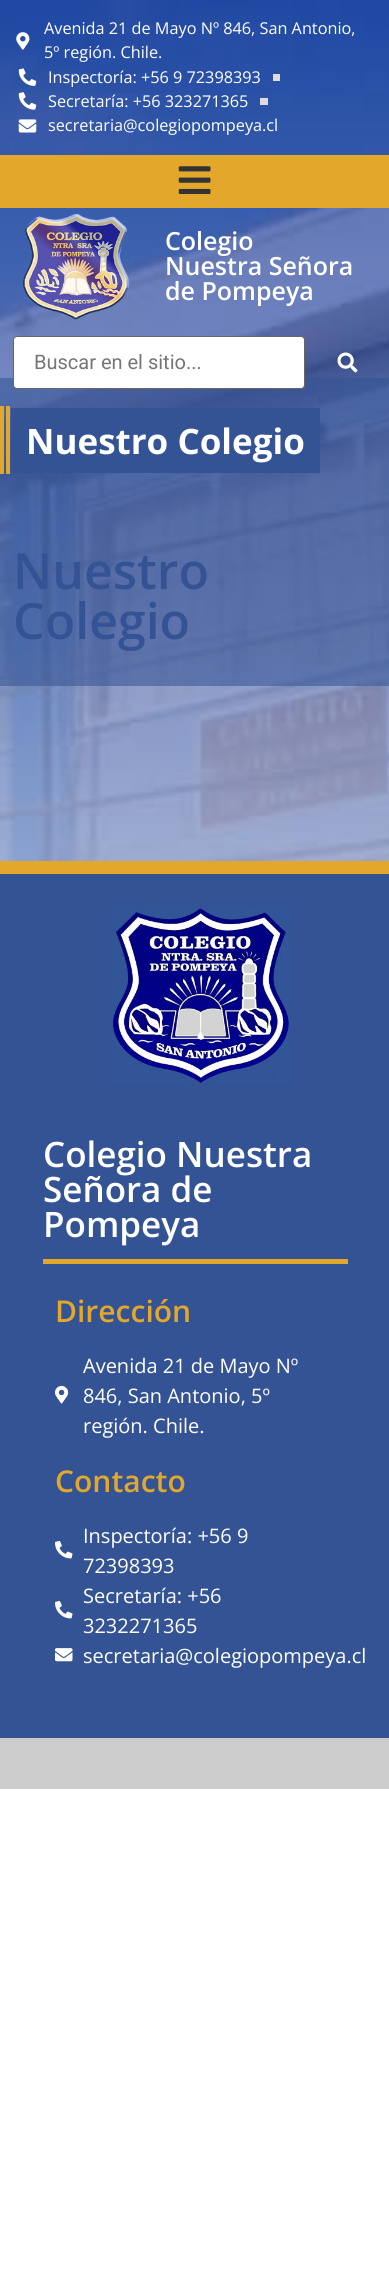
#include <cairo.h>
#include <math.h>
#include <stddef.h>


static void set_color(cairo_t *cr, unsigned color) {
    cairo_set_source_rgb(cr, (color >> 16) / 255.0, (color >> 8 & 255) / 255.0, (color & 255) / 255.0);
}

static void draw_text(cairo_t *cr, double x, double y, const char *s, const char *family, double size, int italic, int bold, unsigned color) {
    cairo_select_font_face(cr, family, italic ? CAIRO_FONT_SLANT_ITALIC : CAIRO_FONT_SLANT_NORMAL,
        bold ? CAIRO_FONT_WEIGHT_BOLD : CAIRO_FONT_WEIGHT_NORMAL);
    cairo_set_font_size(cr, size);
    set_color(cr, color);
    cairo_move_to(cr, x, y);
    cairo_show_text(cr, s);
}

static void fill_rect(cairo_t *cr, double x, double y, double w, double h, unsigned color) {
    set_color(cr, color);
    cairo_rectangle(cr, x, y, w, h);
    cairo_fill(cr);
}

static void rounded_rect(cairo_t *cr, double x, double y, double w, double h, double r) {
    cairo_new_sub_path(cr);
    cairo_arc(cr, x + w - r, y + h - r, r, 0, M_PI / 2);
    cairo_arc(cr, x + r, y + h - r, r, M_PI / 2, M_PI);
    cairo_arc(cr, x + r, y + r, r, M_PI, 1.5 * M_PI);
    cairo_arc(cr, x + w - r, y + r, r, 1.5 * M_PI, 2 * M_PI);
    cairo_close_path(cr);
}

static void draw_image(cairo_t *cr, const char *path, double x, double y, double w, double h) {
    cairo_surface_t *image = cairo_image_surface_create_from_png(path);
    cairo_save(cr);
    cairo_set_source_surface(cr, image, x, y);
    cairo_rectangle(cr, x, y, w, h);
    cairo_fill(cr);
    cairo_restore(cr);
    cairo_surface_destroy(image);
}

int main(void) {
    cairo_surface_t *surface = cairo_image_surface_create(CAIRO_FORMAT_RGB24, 389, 2275);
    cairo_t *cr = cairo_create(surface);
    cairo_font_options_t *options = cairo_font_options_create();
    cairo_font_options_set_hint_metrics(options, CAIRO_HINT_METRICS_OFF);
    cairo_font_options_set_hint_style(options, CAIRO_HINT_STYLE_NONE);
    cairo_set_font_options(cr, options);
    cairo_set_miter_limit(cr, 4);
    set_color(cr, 0xFFFFFF);
    cairo_paint(cr);
    draw_image(cr, "assets/img1.png", 0, 0, 389, 861);
    draw_image(cr, "assets/img2.png", 16, 32, 14, 18);
    draw_text(cr, 44, 34, "Avenida 21 de Mayo Nº 846, San Antonio,", "Open Sans", 16.25, 0, 0, 0xFFFFFF);
    draw_text(cr, 44, 58, "5º región. Chile.", "Open Sans", 16.25, 0, 0, 0xFFFFFF);
    draw_image(cr, "assets/img3.png", 18, 68, 19, 18);
    draw_text(cr, 48, 83, "Inspectoría: +56 9 72398393", "Open Sans", 16.25, 0, 0, 0xFFFFFF);
    fill_rect(cr, 273, 74, 7, 7, 0xDDDDDD);
    draw_image(cr, "assets/img4.png", 18, 92, 19, 18);
    draw_text(cr, 48, 107, "Secretaría: +56 323271365", "Open Sans", 16.25, 0, 0, 0xFFFFFF);
    fill_rect(cr, 260, 98, 8, 7, 0xDDDDDD);
    draw_image(cr, "assets/img5.png", 18, 119, 19, 14);
    draw_text(cr, 48, 131, "secretaria@colegiopompeya.cl", "Open Sans", 16.25, 0, 0, 0xFFFFFF);
    fill_rect(cr, 0, 155, 389, 53, 0xE3A72C);
    draw_image(cr, "assets/img6.png", 178, 166, 33, 28);
    draw_image(cr, "assets/img7.png", 23, 213, 106, 107);
    draw_text(cr, 165, 250, "Colegio", "Open Sans SemiBold", 25, 0, 0, 0xFFFFFF);
    draw_text(cr, 165, 275, "Nuestra Señora", "Open Sans SemiBold", 25, 0, 0, 0xFFFFFF);
    draw_text(cr, 165, 300, "de Pompeya", "Open Sans SemiBold", 25, 0, 0, 0xFFFFFF);
    cairo_set_source_rgba(cr, 0.204, 0.325, 0.58, 0.55);
    cairo_rectangle(cr, 0, 378, 389, 308);
    cairo_fill(cr);
    set_color(cr, 0xFFFFFF);
    rounded_rect(cr, 13.5, 336.5, 291, 52, 3.5);
    cairo_fill_preserve(cr);
    set_color(cr, 0x666666);
    cairo_set_line_width(cr, 1);
    cairo_stroke(cr);
    draw_text(cr, 34, 369, "Buscar en el sitio...", "Roboto", 20, 0, 0, 0x757575);
    draw_image(cr, "assets/img8.png", 337, 352, 21, 21);
    fill_rect(cr, 0, 406, 4, 68, 0xE3A72C);
    fill_rect(cr, 6, 406, 4, 68, 0xE3A72C);
    fill_rect(cr, 11, 408, 309, 65, 0x345394);
    draw_text(cr, 26, 454, "Nuestro Colegio", "Open Sans", 35, 0, 1, 0xFFFFFF);
    draw_text(cr, 13, 589, "Nuestro", "Open Sans SemiBold", 50, 0, 0, 0x345394);
    draw_text(cr, 13, 639, "Colegio", "Open Sans SemiBold", 50, 0, 0, 0x345394);
    fill_rect(cr, 0, 874, 389, 864, 0x345394);
    fill_rect(cr, 0, 861, 389, 13, 0xE3A72C);
    draw_image(cr, "assets/img9.png", 110, 907, 181, 177);
    draw_text(cr, 43, 1167, "Colegio Nuestra", "Open Sans SemiBold", 35, 0, 0, 0xFFFFFF);
    draw_text(cr, 43, 1202, "Señora de", "Open Sans SemiBold", 35, 0, 0, 0xFFFFFF);
    draw_text(cr, 43, 1237, "Pompeya", "Open Sans SemiBold", 35, 0, 0, 0xFFFFFF);
    fill_rect(cr, 43, 1259, 305, 5, 0xE3A72C);
    draw_text(cr, 55, 1322, "Dirección", "Open Sans SemiBold", 30, 0, 0, 0xE3A72C);
    draw_image(cr, "assets/img10.png", 55, 1385, 14, 19);
    draw_text(cr, 83, 1373, "Avenida 21 de Mayo Nº", "Open Sans", 20, 0, 0, 0xFFFFFF);
    draw_text(cr, 83, 1403, "846, San Antonio, 5º", "Open Sans", 20, 0, 0, 0xFFFFFF);
    draw_text(cr, 83, 1433, "región. Chile.", "Open Sans", 20, 0, 0, 0xFFFFFF);
    draw_text(cr, 55, 1492, "Contacto", "Open Sans SemiBold", 30, 0, 0, 0xE3A72C);
    draw_image(cr, "assets/img11.png", 55, 1541, 18, 18);
    draw_text(cr, 83, 1543, "Inspectoría: +56 9", "Open Sans", 20, 0, 0, 0xFFFFFF);
    draw_text(cr, 83, 1573, "72398393", "Open Sans", 20, 0, 0, 0xFFFFFF);
    draw_image(cr, "assets/img11.png", 55, 1601, 18, 18);
    draw_text(cr, 83, 1603, "Secretaría: +56", "Open Sans", 20, 0, 0, 0xFFFFFF);
    draw_text(cr, 83, 1633, "3232271365", "Open Sans", 20, 0, 0, 0xFFFFFF);
    draw_image(cr, "assets/img12.png", 55, 1648, 18, 14);
    draw_text(cr, 83, 1663, "secretaria@colegiopompeya.cl", "Open Sans", 20, 0, 0, 0xFFFFFF);
    fill_rect(cr, 0, 1738, 389, 51, 0xCCCCCC);
    cairo_surface_write_to_png(surface, "output.png");
    cairo_font_options_destroy(options);
    cairo_destroy(cr);
    cairo_surface_destroy(surface);
    return 0;
}
